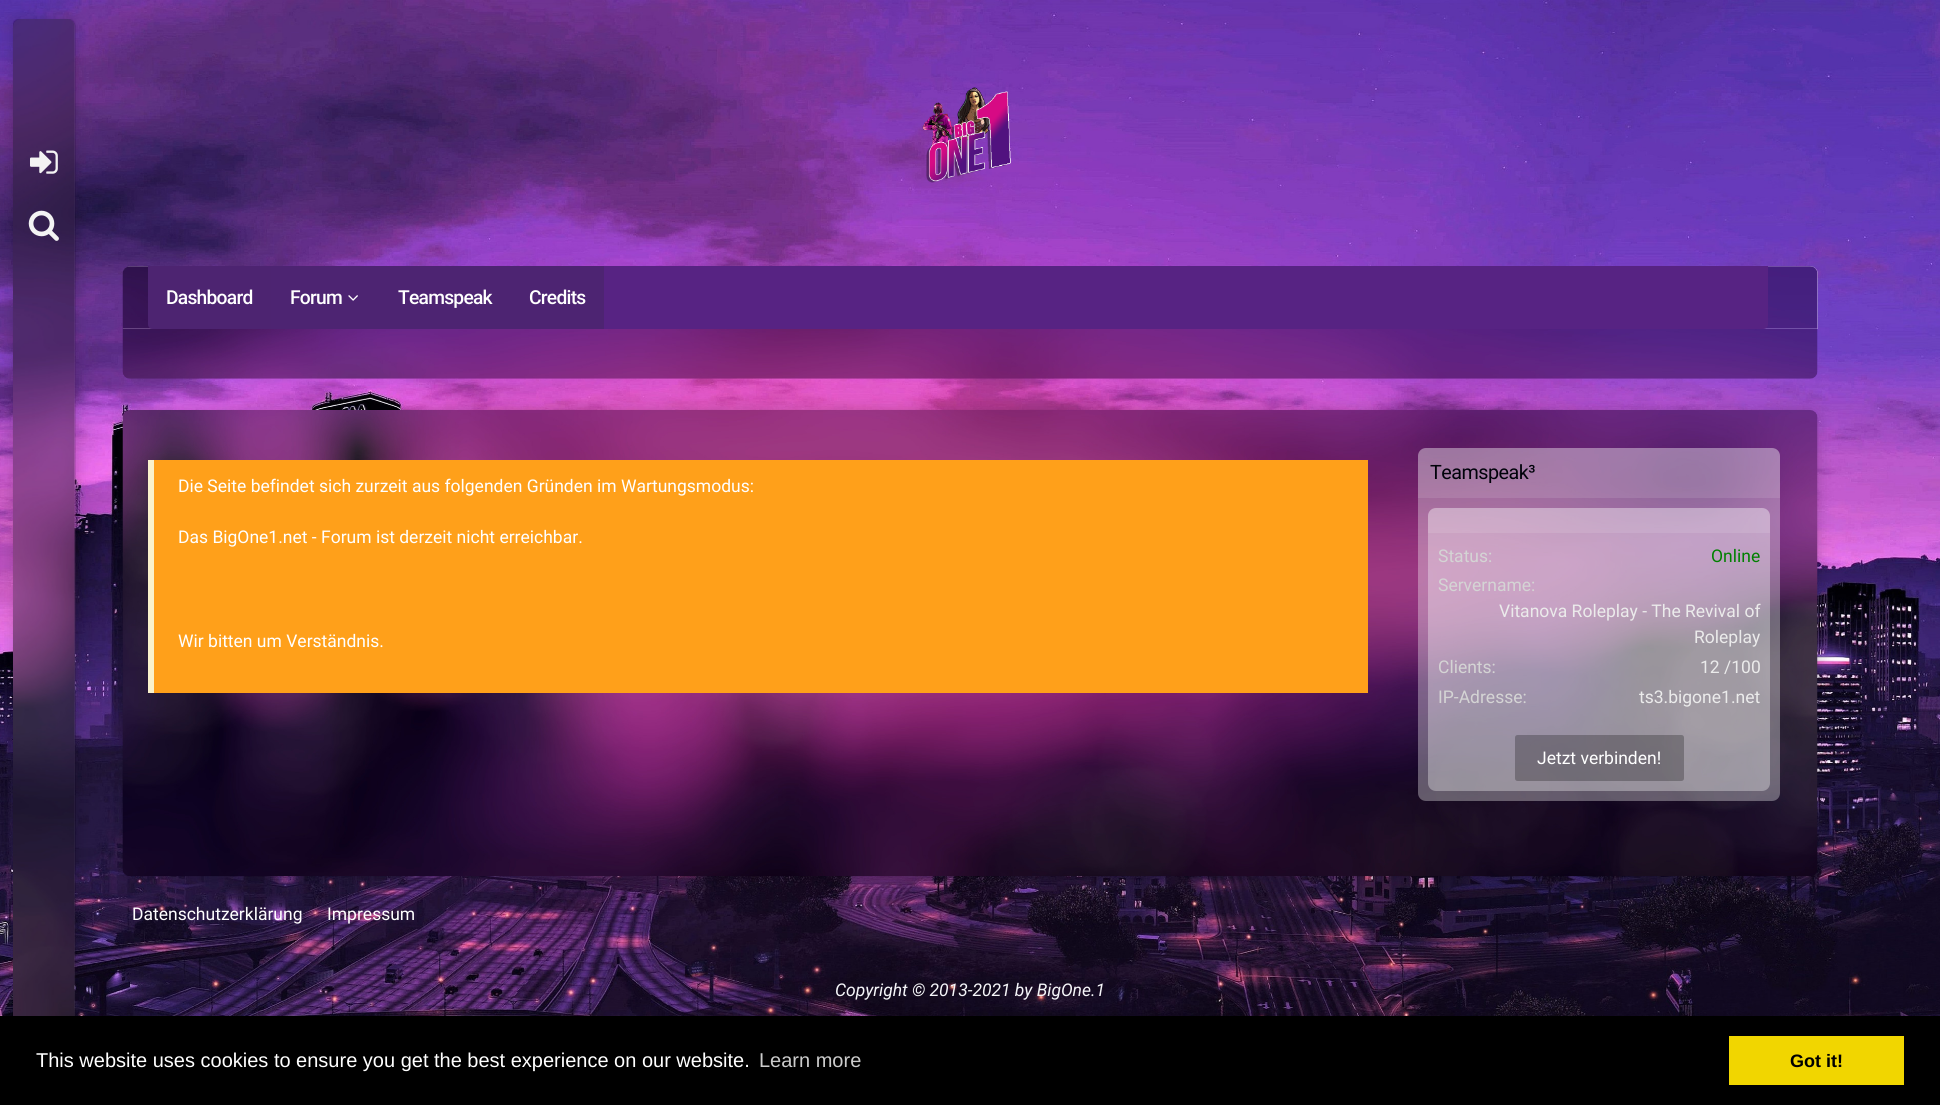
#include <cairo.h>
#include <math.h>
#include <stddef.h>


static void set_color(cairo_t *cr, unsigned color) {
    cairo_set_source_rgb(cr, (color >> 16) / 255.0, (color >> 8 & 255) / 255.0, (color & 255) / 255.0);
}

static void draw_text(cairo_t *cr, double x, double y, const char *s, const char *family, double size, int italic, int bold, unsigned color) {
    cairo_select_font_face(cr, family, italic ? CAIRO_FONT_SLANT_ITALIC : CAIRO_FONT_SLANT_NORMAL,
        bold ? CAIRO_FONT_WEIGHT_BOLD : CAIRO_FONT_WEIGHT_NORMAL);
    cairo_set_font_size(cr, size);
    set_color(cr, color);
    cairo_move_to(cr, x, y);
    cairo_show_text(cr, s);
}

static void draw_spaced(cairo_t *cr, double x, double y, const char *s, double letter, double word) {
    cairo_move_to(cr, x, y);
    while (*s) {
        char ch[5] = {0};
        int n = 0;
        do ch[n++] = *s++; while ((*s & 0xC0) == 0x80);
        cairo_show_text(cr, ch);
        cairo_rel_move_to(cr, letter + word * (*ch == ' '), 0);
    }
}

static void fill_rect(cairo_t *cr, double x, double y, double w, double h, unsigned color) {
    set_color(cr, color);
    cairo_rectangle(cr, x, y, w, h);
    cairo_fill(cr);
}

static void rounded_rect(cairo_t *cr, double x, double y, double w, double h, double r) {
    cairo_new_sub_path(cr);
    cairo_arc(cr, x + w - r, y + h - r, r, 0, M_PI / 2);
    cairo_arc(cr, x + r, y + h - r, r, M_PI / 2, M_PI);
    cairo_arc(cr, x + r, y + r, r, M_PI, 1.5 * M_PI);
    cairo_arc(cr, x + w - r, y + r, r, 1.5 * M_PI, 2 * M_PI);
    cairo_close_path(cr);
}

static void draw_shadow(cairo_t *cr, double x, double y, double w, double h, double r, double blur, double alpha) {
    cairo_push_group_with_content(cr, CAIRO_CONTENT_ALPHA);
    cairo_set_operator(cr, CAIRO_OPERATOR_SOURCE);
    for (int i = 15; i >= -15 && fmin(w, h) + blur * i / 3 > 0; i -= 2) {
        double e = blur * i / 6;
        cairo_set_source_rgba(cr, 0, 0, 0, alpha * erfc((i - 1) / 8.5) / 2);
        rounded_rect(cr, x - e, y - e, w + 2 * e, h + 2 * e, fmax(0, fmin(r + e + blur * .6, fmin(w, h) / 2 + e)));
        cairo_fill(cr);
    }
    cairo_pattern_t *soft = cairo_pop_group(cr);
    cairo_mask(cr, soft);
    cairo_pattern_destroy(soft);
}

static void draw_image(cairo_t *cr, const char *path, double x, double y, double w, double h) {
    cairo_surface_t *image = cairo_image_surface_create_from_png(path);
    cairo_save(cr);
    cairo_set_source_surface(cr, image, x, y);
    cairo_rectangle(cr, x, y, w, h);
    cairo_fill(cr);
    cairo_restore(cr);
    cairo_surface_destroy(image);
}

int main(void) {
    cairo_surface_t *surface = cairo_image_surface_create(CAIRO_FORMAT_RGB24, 1940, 1105);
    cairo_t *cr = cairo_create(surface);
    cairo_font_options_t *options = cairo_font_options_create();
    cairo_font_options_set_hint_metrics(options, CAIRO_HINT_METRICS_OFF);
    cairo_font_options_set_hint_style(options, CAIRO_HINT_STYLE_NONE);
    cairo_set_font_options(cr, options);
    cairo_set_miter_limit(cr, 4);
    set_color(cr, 0xFFFFFF);
    cairo_paint(cr);
    draw_image(cr, "assets/img1.png", 0, 0, 1940, 1016);
    draw_image(cr, "assets/img2.png", 922, 87, 89, 96);
    draw_image(cr, "assets/img8.png", 122, 328, 1696, 51);
    cairo_set_source_rgba(cr, 1, 1, 1, 0.4);
    cairo_new_path(cr);
    cairo_move_to(cr, 131, 266);
    cairo_line_to(cr, 1810, 266);
    cairo_curve_to(cr, 1814.5, 266, 1818, 269.5, 1818, 274);
    cairo_line_to(cr, 1818, 329);
    cairo_line_to(cr, 123, 329);
    cairo_line_to(cr, 123, 274);
    cairo_curve_to(cr, 123, 269.5, 126.5, 266, 131, 266);
    cairo_close_path(cr);
    cairo_fill(cr);
    draw_image(cr, "assets/img3.png", 122, 266, 1696, 63);
    set_color(cr, 0x000000);
    draw_shadow(cr, 13, 19, 62, 1061, 8, 7.5, 0.2);
    draw_image(cr, "assets/img4.png", 13, 19, 63, 997);
    cairo_set_source_rgba(cr, 1, 1, 1, 0.08);
    rounded_rect(cr, 13, 19, 62, 1061, 8);
    cairo_fill(cr);
    draw_image(cr, "assets/img5.png", 30, 150, 28, 24);
    draw_image(cr, "assets/img6.png", 28, 210, 31, 31);
    set_color(cr, 0x572383);
    cairo_new_path(cr);
    cairo_move_to(cr, 148, 266);
    cairo_line_to(cr, 1768, 266);
    cairo_line_to(cr, 1768, 324);
    cairo_curve_to(cr, 1768, 327, 1766, 329, 1763, 329);
    cairo_line_to(cr, 153, 329);
    cairo_curve_to(cr, 150, 329, 148, 327, 148, 324);
    cairo_close_path(cr);
    cairo_fill(cr);
    cairo_set_source_rgba(cr, 0.149, 0.161, 0.173, 0.2);
    cairo_new_path(cr);
    cairo_move_to(cr, 148, 266);
    cairo_line_to(cr, 271, 266);
    cairo_line_to(cr, 271, 329);
    cairo_line_to(cr, 153, 329);
    cairo_curve_to(cr, 150, 329, 148, 327, 148, 324);
    cairo_close_path(cr);
    cairo_fill(cr);
    cairo_select_font_face(cr, "Roboto Medium", CAIRO_FONT_SLANT_NORMAL, CAIRO_FONT_WEIGHT_NORMAL);
    cairo_set_font_size(cr, 19.25);
    set_color(cr, 0xFFFFFF);
    draw_spaced(cr, 166, 304, "Dashboard", -0.75, 0);
    fill_rect(cr, 271, 266, 333, 63, 0x4D2472);
    set_color(cr, 0xFFFFFF);
    draw_spaced(cr, 290, 304, "Forum", -0.75, 0);
    draw_image(cr, "assets/img7.png", 348, 295, 10, 6);
    draw_spaced(cr, 398, 304, "Teamspeak", -0.75, 0);
    draw_spaced(cr, 529, 304, "Credits", -0.75, 0);
    set_color(cr, 0x000000);
    draw_shadow(cr, 123, 410, 1695, 466, 8, 7.5, 0.2);
    draw_image(cr, "assets/img9.png", 122, 410, 1696, 467);
    fill_rect(cr, 154, 460, 1214, 233, 0xFFA01A);
    fill_rect(cr, 148, 460, 6, 233, 0xFAF2CC);
    draw_text(cr, 178, 492, "Die Seite befindet sich zurzeit aus folgenden Gründen im Wartungsmodus:", "Roboto", 17.5, 0, 0, 0xFFFFFF);
    draw_text(cr, 178, 543, "Das BigOne1.net - Forum ist derzeit nicht erreichbar.", "Roboto", 17.5, 0, 0, 0xFFFFFF);
    draw_text(cr, 178, 647, "Wir bitten um Verständnis.", "Roboto", 17.5, 0, 0, 0xFFFFFF);
    cairo_set_source_rgba(cr, 1, 1, 1, 0.4);
    cairo_new_path(cr);
    cairo_move_to(cr, 1426, 448);
    cairo_line_to(cr, 1772, 448);
    cairo_curve_to(cr, 1776.5, 448, 1780, 451.5, 1780, 456);
    cairo_line_to(cr, 1780, 498);
    cairo_line_to(cr, 1418, 498);
    cairo_line_to(cr, 1418, 456);
    cairo_curve_to(cr, 1418, 451.5, 1421.5, 448, 1426, 448);
    cairo_close_path(cr);
    cairo_fill(cr);
    cairo_set_font_size(cr, 19.75);
    set_color(cr, 0x00020A);
    draw_spaced(cr, 1430, 479, "Teamspeak³", -0.5, 0);
    cairo_set_source_rgba(cr, 1, 1, 1, 0.33);
    cairo_new_path(cr);
    cairo_move_to(cr, 1418, 498);
    cairo_line_to(cr, 1780, 498);
    cairo_line_to(cr, 1780, 793);
    cairo_curve_to(cr, 1780, 797.5, 1776.5, 801, 1772, 801);
    cairo_line_to(cr, 1426, 801);
    cairo_curve_to(cr, 1421.5, 801, 1418, 797.5, 1418, 793);
    cairo_close_path(cr);
    cairo_fill(cr);
    cairo_set_source_rgba(cr, 1, 1, 1, 0.4);
    cairo_new_path(cr);
    cairo_move_to(cr, 1436, 508);
    cairo_line_to(cr, 1762, 508);
    cairo_curve_to(cr, 1766.5, 508, 1770, 511.5, 1770, 516);
    cairo_line_to(cr, 1770, 533);
    cairo_line_to(cr, 1428, 533);
    cairo_line_to(cr, 1428, 516);
    cairo_curve_to(cr, 1428, 511.5, 1431.5, 508, 1436, 508);
    cairo_close_path(cr);
    cairo_fill(cr);
    cairo_set_source_rgba(cr, 1, 1, 1, 0.33);
    cairo_new_path(cr);
    cairo_move_to(cr, 1428, 533);
    cairo_line_to(cr, 1770, 533);
    cairo_line_to(cr, 1770, 783);
    cairo_curve_to(cr, 1770, 787.5, 1766.5, 791, 1762, 791);
    cairo_line_to(cr, 1436, 791);
    cairo_curve_to(cr, 1431.5, 791, 1428, 787.5, 1428, 783);
    cairo_close_path(cr);
    cairo_fill(cr);
    draw_text(cr, 1438, 562, "Status:", "Roboto", 17.5, 0, 0, 0xD4D4D4);
    draw_text(cr, 1711, 562, "Online", "Roboto", 17.5, 0, 0, 0x008000);
    draw_text(cr, 1438, 591, "Servername:", "Roboto", 17.5, 0, 0, 0xD4D4D4);
    draw_text(cr, 1499, 617, "Vitanova Roleplay - The Revival of", "Roboto", 17.5, 0, 0, 0xEBEBEB);
    draw_text(cr, 1694, 643, "Roleplay", "Roboto", 17.5, 0, 0, 0xEBEBEB);
    draw_text(cr, 1438, 673, "Clients:", "Roboto", 17.5, 0, 0, 0xD4D4D4);
    draw_text(cr, 1700, 673, "12 /100", "Roboto", 17.5, 0, 0, 0xEBEBEB);
    draw_text(cr, 1438, 703, "IP-Adresse:", "Roboto", 17.5, 0, 0, 0xD4D4D4);
    draw_text(cr, 1639, 703, "ts3.bigone1.net", "Roboto", 17.5, 0, 0, 0xEBEBEB);
    cairo_set_source_rgba(cr, 0, 0, 0, 0.25);
    rounded_rect(cr, 1515, 735, 169, 46, 2.5);
    cairo_fill(cr);
    draw_text(cr, 1537, 764, "Jetzt verbinden!", "Roboto", 17.5, 0, 0, 0xFFFFFF);
    draw_text(cr, 132, 920, "Datenschutzerklärung", "Roboto", 17.5, 0, 0, 0xFFFFFF);
    draw_text(cr, 327, 920, "Impressum", "Roboto", 17.5, 0, 0, 0xFFFFFF);
    draw_text(cr, 835, 996, "Copyright © 2013-2021 by BigOne.1", "Roboto", 17.5, 1, 0, 0xF5F6F9);
    fill_rect(cr, 0, 1016, 1940, 89, 0x000000);
    draw_text(cr, 36, 1067, "This website uses cookies to ensure you get the best experience on our website.", "Liberation Sans", 20, 0, 0, 0xFFFFFF);
    draw_text(cr, 759, 1067, "Learn more", "Liberation Sans", 20, 0, 0, 0xCCCCCC);
    fill_rect(cr, 1729, 1036, 175, 49, 0xF1D600);
    draw_text(cr, 1790, 1067, "Got it!", "Liberation Sans", 18, 0, 1, 0x000000);
    cairo_surface_write_to_png(surface, "output.png");
    cairo_font_options_destroy(options);
    cairo_destroy(cr);
    cairo_surface_destroy(surface);
    return 0;
}
